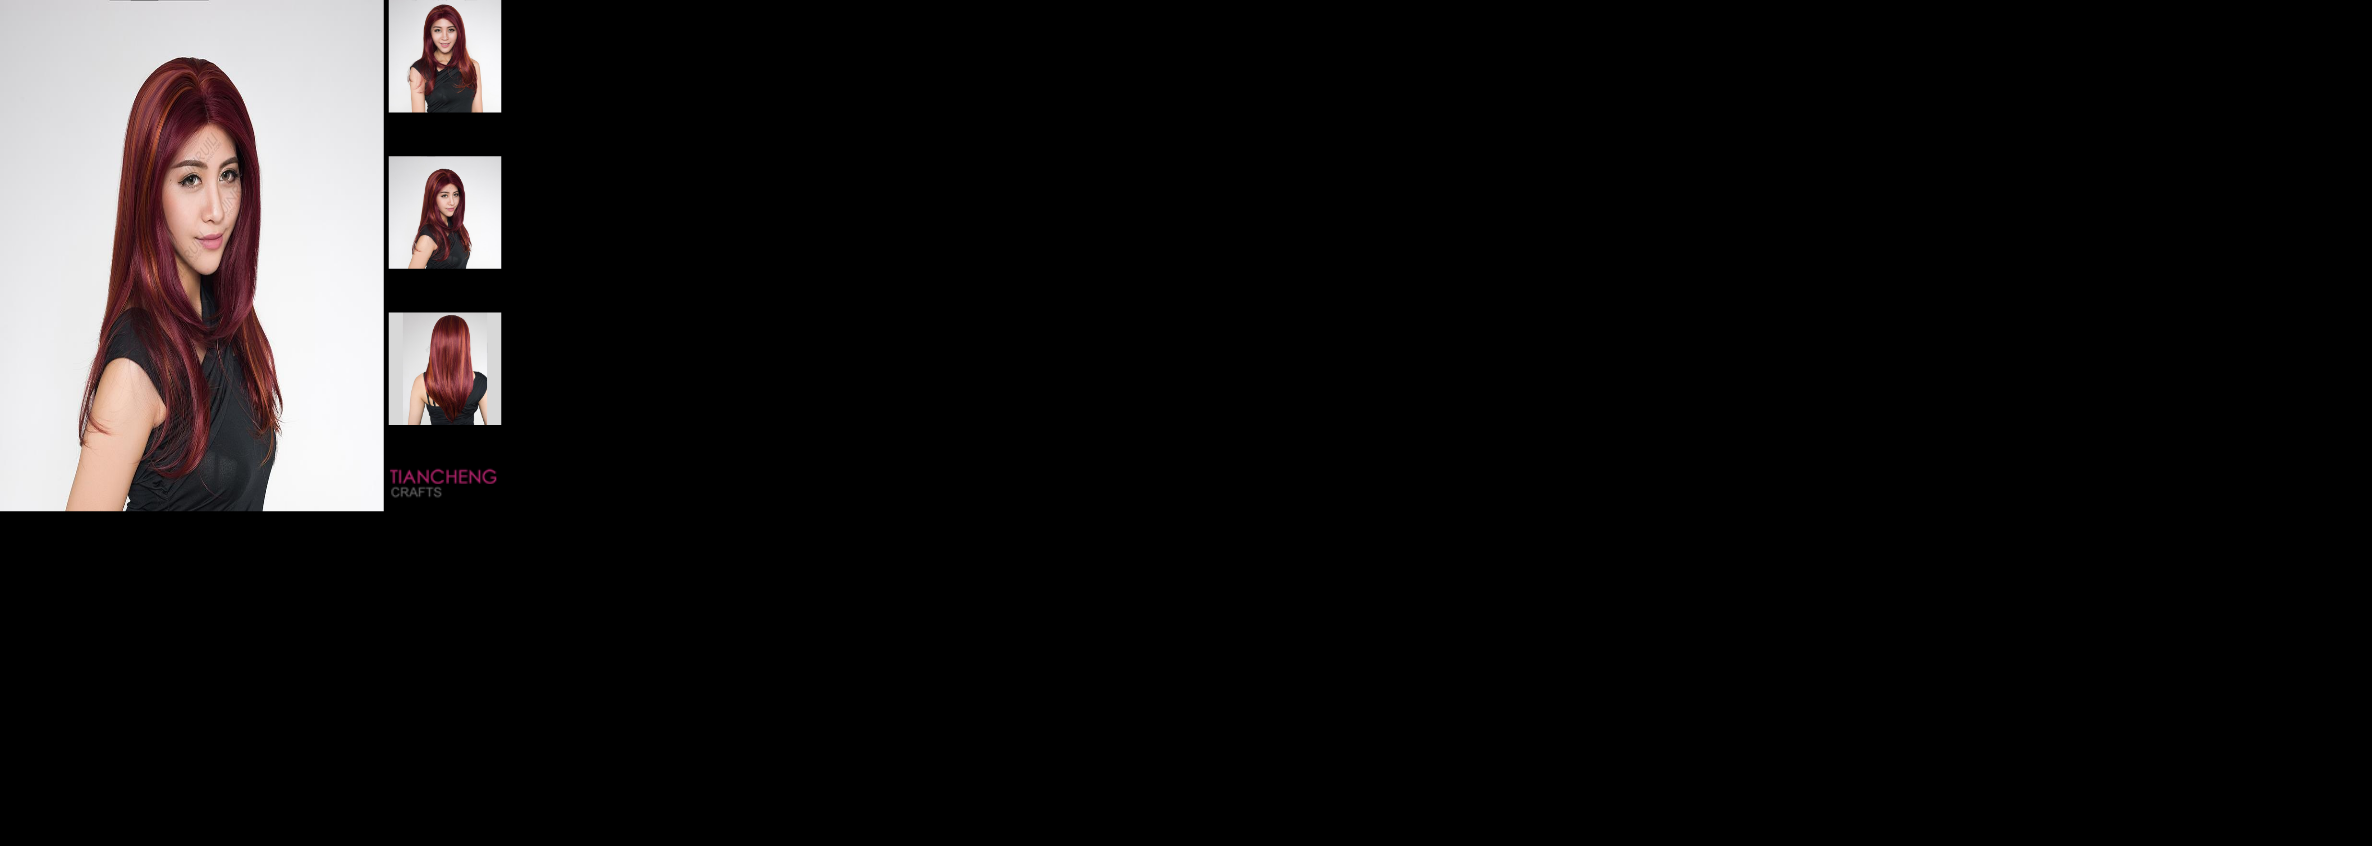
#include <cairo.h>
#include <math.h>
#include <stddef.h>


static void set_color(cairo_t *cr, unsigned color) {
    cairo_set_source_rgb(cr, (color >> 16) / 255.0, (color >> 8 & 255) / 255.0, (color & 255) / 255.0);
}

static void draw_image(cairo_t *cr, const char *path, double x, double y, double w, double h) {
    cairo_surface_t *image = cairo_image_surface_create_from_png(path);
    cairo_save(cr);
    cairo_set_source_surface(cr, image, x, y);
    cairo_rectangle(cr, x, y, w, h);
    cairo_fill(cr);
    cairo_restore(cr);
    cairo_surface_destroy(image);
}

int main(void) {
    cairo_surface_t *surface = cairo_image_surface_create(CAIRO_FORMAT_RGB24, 2372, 846);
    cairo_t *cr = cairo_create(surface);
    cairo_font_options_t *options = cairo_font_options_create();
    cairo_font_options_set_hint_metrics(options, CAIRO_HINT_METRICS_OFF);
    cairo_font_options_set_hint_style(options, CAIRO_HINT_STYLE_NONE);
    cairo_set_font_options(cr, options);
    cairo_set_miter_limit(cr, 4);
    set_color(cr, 0x000000);
    cairo_paint(cr);
    draw_image(cr, "assets/img1.png", 0, 0, 384, 512);
    draw_image(cr, "assets/img2.png", 388, 0, 114, 113);
    draw_image(cr, "assets/img3.png", 388, 156, 114, 113);
    draw_image(cr, "assets/img4.png", 388, 312, 114, 113);
    draw_image(cr, "assets/img5.png", 389, 468, 108, 30);
    cairo_surface_write_to_png(surface, "output.png");
    cairo_font_options_destroy(options);
    cairo_destroy(cr);
    cairo_surface_destroy(surface);
    return 0;
}
